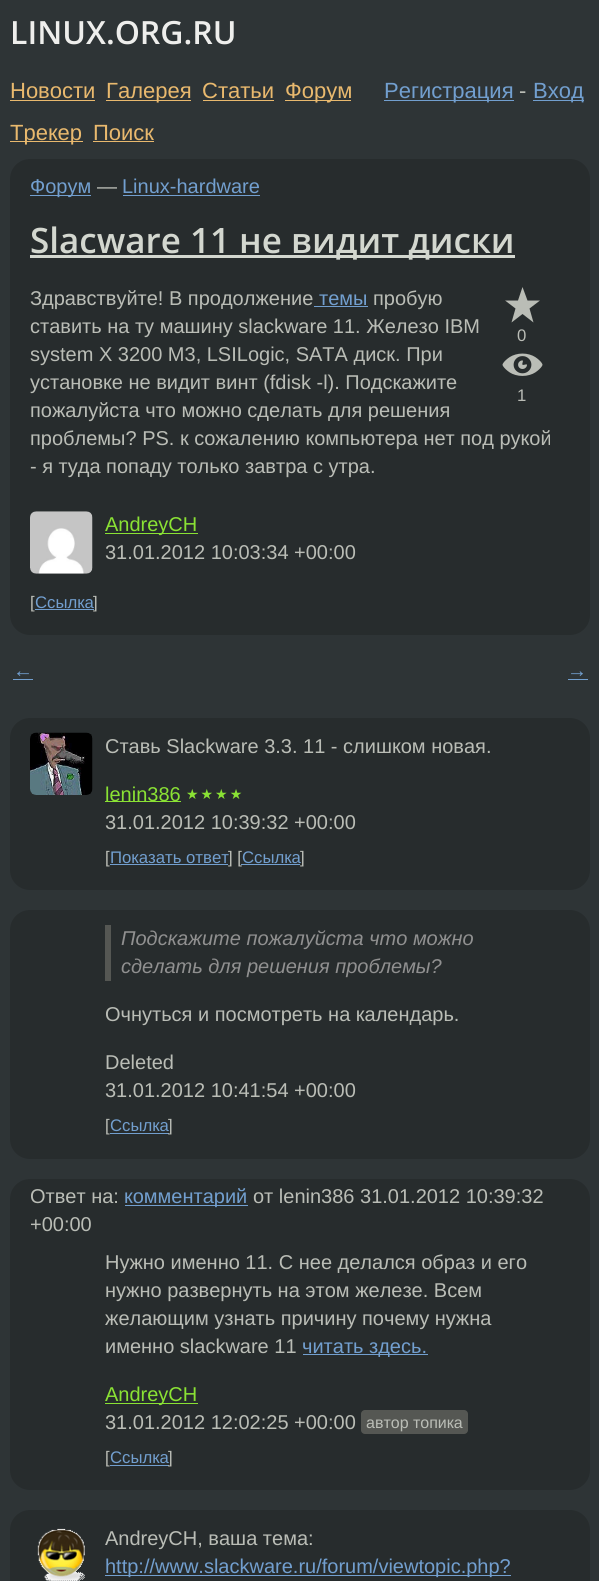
#include <cairo.h>
#include <math.h>
#include <stddef.h>


static void set_color(cairo_t *cr, unsigned color) {
    cairo_set_source_rgb(cr, (color >> 16) / 255.0, (color >> 8 & 255) / 255.0, (color & 255) / 255.0);
}

static void draw_text(cairo_t *cr, double x, double y, const char *s, const char *family, double size, int italic, int bold, unsigned color) {
    cairo_select_font_face(cr, family, italic ? CAIRO_FONT_SLANT_ITALIC : CAIRO_FONT_SLANT_NORMAL,
        bold ? CAIRO_FONT_WEIGHT_BOLD : CAIRO_FONT_WEIGHT_NORMAL);
    cairo_set_font_size(cr, size);
    set_color(cr, color);
    cairo_move_to(cr, x, y);
    cairo_show_text(cr, s);
}

static void draw_spaced(cairo_t *cr, double x, double y, const char *s, double letter, double word) {
    cairo_move_to(cr, x, y);
    while (*s) {
        char ch[5] = {0};
        int n = 0;
        do ch[n++] = *s++; while ((*s & 0xC0) == 0x80);
        cairo_show_text(cr, ch);
        cairo_rel_move_to(cr, letter + word * (*ch == ' '), 0);
    }
}

static void fill_rect(cairo_t *cr, double x, double y, double w, double h, unsigned color) {
    set_color(cr, color);
    cairo_rectangle(cr, x, y, w, h);
    cairo_fill(cr);
}

static void rounded_rect(cairo_t *cr, double x, double y, double w, double h, double r) {
    cairo_new_sub_path(cr);
    cairo_arc(cr, x + w - r, y + h - r, r, 0, M_PI / 2);
    cairo_arc(cr, x + r, y + h - r, r, M_PI / 2, M_PI);
    cairo_arc(cr, x + r, y + r, r, M_PI, 1.5 * M_PI);
    cairo_arc(cr, x + w - r, y + r, r, 1.5 * M_PI, 2 * M_PI);
    cairo_close_path(cr);
}

static void draw_image(cairo_t *cr, const char *path, double x, double y, double w, double h) {
    cairo_surface_t *image = cairo_image_surface_create_from_png(path);
    cairo_save(cr);
    cairo_set_source_surface(cr, image, x, y);
    cairo_rectangle(cr, x, y, w, h);
    cairo_fill(cr);
    cairo_restore(cr);
    cairo_surface_destroy(image);
}

int main(void) {
    cairo_surface_t *surface = cairo_image_surface_create(CAIRO_FORMAT_RGB24, 599, 1581);
    cairo_t *cr = cairo_create(surface);
    cairo_font_options_t *options = cairo_font_options_create();
    cairo_font_options_set_hint_metrics(options, CAIRO_HINT_METRICS_OFF);
    cairo_font_options_set_hint_style(options, CAIRO_HINT_STYLE_NONE);
    cairo_set_font_options(cr, options);
    cairo_set_miter_limit(cr, 4);
    set_color(cr, 0x2E3436);
    cairo_paint(cr);
    draw_text(cr, 10, 44, "LINUX.ORG.RU", "Open Sans SemiBold", 32, 0, 0, 0xEEEEEC);
    draw_text(cr, 10, 98, "Новости", "Liberation Sans", 22, 0, 0, 0xE9B96E);
    fill_rect(cr, 10, 100, 85, 1, 0xE9B96E);
    fill_rect(cr, 106, 100, 85, 1, 0xE9B96E);
    draw_text(cr, 106, 98, "Галерея", "Liberation Sans", 22, 0, 0, 0xE9B96E);
    draw_text(cr, 202, 98, "Статьи", "Liberation Sans", 22, 0, 0, 0xE9B96E);
    fill_rect(cr, 203, 100, 71, 1, 0xE9B96E);
    fill_rect(cr, 285, 100, 66, 1, 0xE9B96E);
    draw_text(cr, 285, 98, "Форум", "Liberation Sans", 22, 0, 0, 0xE9B96E);
    fill_rect(cr, 10, 141, 73, 1, 0xE9B96E);
    draw_text(cr, 10, 140, "Трекер", "Liberation Sans", 22, 0, 0, 0xE9B96E);
    draw_text(cr, 93, 140, "Поиск", "Liberation Sans", 22, 0, 0, 0xE9B96E);
    fill_rect(cr, 93, 141, 61, 1, 0xE9B96E);
    fill_rect(cr, 384, 100, 130, 1, 0x729FCF);
    draw_text(cr, 384, 98, "Регистрация", "Liberation Sans", 22, 0, 0, 0x729FCF);
    draw_text(cr, 519, 98, "-", "Liberation Sans", 22, 0, 0, 0xBABDB6);
    fill_rect(cr, 533, 100, 51, 1, 0x729FCF);
    draw_text(cr, 533, 98, "Вход", "Liberation Sans", 22, 0, 0, 0x729FCF);
    set_color(cr, 0x272C2D);
    rounded_rect(cr, 10, 159, 580, 476, 20);
    cairo_fill(cr);
    fill_rect(cr, 30, 195, 61, 1, 0x729FCF);
    draw_text(cr, 30, 193, "Форум", "Liberation Sans", 20, 0, 0, 0x729FCF);
    draw_text(cr, 97, 193, "—", "Liberation Sans", 20, 0, 0, 0xBABDB6);
    draw_text(cr, 122, 193, "Linux-hardware", "Liberation Sans", 20, 0, 0, 0x729FCF);
    fill_rect(cr, 123, 195, 137, 1, 0x729FCF);
    fill_rect(cr, 30, 255, 485, 3, 0xD3D7CF);
    draw_text(cr, 30, 253, "Slacware 11 не видит диски", "Open Sans SemiBold", 35, 0, 0, 0xD3D7CF);
    draw_text(cr, 30, 305, "Здравствуйте! В продолжение", "Liberation Sans", 20, 0, 0, 0xBABDB6);
    draw_text(cr, 319, 305, "темы", "Liberation Sans", 20, 0, 0, 0x729FCF);
    fill_rect(cr, 314, 306, 54, 1, 0x729FCF);
    draw_text(cr, 373, 305, "пробую", "Liberation Sans", 20, 0, 0, 0xBABDB6);
    draw_text(cr, 30, 333, "ставить на ту машину slackware 11. Железо IBM", "Liberation Sans", 20, 0, 0, 0xBABDB6);
    draw_text(cr, 30, 361, "system X 3200 M3, LSILogic, SATA диск. При", "Liberation Sans", 20, 0, 0, 0xBABDB6);
    draw_text(cr, 30, 389, "установке не видит винт (fdisk -l). Подскажите", "Liberation Sans", 20, 0, 0, 0xBABDB6);
    draw_text(cr, 30, 417, "пожалуйста что можно сделать для решения", "Liberation Sans", 20, 0, 0, 0xBABDB6);
    draw_text(cr, 30, 445, "проблемы? PS. к сожалению компьютера нет под рукой", "Liberation Sans", 20, 0, 0, 0xBABDB6);
    draw_text(cr, 30, 473, "- я туда попаду только завтра с утра.", "Liberation Sans", 20, 0, 0, 0xBABDB6);
    cairo_new_path(cr);
    cairo_move_to(cr, 522.5, 287);
    cairo_line_to(cr, 527.5, 300.5);
    cairo_line_to(cr, 540, 300.5);
    cairo_line_to(cr, 529.5, 308.5);
    cairo_line_to(cr, 533.5, 322.5);
    cairo_line_to(cr, 522.5, 314);
    cairo_line_to(cr, 511.5, 322.5);
    cairo_line_to(cr, 515.5, 308.5);
    cairo_line_to(cr, 505, 300.5);
    cairo_line_to(cr, 518, 300.5);
    cairo_close_path(cr);
    cairo_fill(cr);
    draw_text(cr, 517, 341, "0", "Liberation Sans", 16.75, 0, 0, 0xBABDB6);
    draw_image(cr, "assets/img1.png", 502, 353, 41, 23);
    draw_text(cr, 517, 401, "1", "Liberation Sans", 16.75, 0, 0, 0xBABDB6);
    draw_image(cr, "assets/img2.png", 30, 511, 63, 63);
    fill_rect(cr, 105, 533, 93, 1, 0x8AE234);
    draw_text(cr, 105, 531, "AndreyCH", "Liberation Sans", 20, 0, 0, 0x8AE234);
    draw_text(cr, 105, 559, "31.01.2012 10:03:34 +00:00", "Liberation Sans", 20, 0, 0, 0xBABDB6);
    draw_text(cr, 30, 608, "[", "Liberation Sans", 16.75, 0, 0, 0xBABDB6);
    fill_rect(cr, 35, 609, 59, 1, 0x729FCF);
    draw_text(cr, 35, 608, "Ссылка", "Liberation Sans", 16.75, 0, 0, 0x729FCF);
    draw_text(cr, 93, 608, "]", "Liberation Sans", 16.75, 0, 0, 0xBABDB6);
    draw_text(cr, 13, 677, "←", "Liberation Sans", 20, 0, 0, 0x729FCF);
    fill_rect(cr, 13, 679, 20, 1, 0x729FCF);
    draw_text(cr, 567, 677, "→", "Liberation Sans", 20, 0, 0, 0x729FCF);
    fill_rect(cr, 568, 679, 20, 1, 0x729FCF);
    set_color(cr, 0x272C2D);
    rounded_rect(cr, 10, 718, 580, 172, 20);
    cairo_fill(cr);
    draw_image(cr, "assets/img3.png", 30, 732, 63, 63);
    draw_text(cr, 105, 753, "Ставь Slackware 3.3. 11 - слишком новая.", "Liberation Sans", 20, 0, 0, 0xBABDB6);
    fill_rect(cr, 105, 801, 76, 1, 0x8AE234);
    draw_text(cr, 105, 801, "lenin386", "Liberation Sans", 20, 0, 0, 0x8AE234);
    cairo_select_font_face(cr, "DejaVu Sans", CAIRO_FONT_SLANT_NORMAL, CAIRO_FONT_WEIGHT_NORMAL);
    cairo_set_font_size(cr, 14);
    draw_spaced(cr, 186, 799, "★★★★", 2, 0);
    draw_text(cr, 105, 829, "31.01.2012 10:39:32 +00:00", "Liberation Sans", 20, 0, 0, 0xBABDB6);
    draw_text(cr, 105, 863, "[", "Liberation Sans", 16.75, 0, 0, 0xBABDB6);
    fill_rect(cr, 110, 864, 118, 1, 0x729FCF);
    draw_text(cr, 110, 863, "Показать ответ", "Liberation Sans", 16.75, 0, 0, 0x729FCF);
    draw_text(cr, 228, 863, "] [", "Liberation Sans", 16.75, 0, 0, 0xBABDB6);
    fill_rect(cr, 241, 864, 59, 1, 0x729FCF);
    draw_text(cr, 242, 863, "Ссылка", "Liberation Sans", 16.75, 0, 0, 0x729FCF);
    draw_text(cr, 300, 863, "]", "Liberation Sans", 16.75, 0, 0, 0xBABDB6);
    set_color(cr, 0x272C2D);
    rounded_rect(cr, 10, 910, 580, 249, 20);
    cairo_fill(cr);
    fill_rect(cr, 105, 925, 6, 56, 0x555753);
    draw_text(cr, 121, 945, "Подскажите пожалуйста что можно", "Liberation Sans", 20, 1, 0, 0x909090);
    draw_text(cr, 121, 973, "сделать для решения проблемы?", "Liberation Sans", 20, 1, 0, 0x909090);
    draw_text(cr, 105, 1021, "Очнуться и посмотреть на календарь.", "Liberation Sans", 20, 0, 0, 0xBABDB6);
    draw_text(cr, 105, 1069, "Deleted", "Liberation Sans", 20, 0, 0, 0xBABDB6);
    draw_text(cr, 105, 1097, "31.01.2012 10:41:54 +00:00", "Liberation Sans", 20, 0, 0, 0xBABDB6);
    draw_text(cr, 105, 1131, "[", "Liberation Sans", 16.75, 0, 0, 0xBABDB6);
    fill_rect(cr, 110, 1133, 59, 1, 0x729FCF);
    draw_text(cr, 110, 1131, "Ссылка", "Liberation Sans", 16.75, 0, 0, 0x729FCF);
    draw_text(cr, 168, 1131, "]", "Liberation Sans", 16.75, 0, 0, 0xBABDB6);
    set_color(cr, 0x272C2D);
    rounded_rect(cr, 10, 1179, 580, 311, 20);
    cairo_fill(cr);
    draw_text(cr, 30, 1203, "Ответ на:", "Liberation Sans", 20, 0, 0, 0xBABDB6);
    fill_rect(cr, 125, 1205, 123, 1, 0x729FCF);
    draw_text(cr, 124, 1203, "комментарий", "Liberation Sans", 20, 0, 0, 0x729FCF);
    draw_text(cr, 253, 1203, "от lenin386 31.01.2012 10:39:32", "Liberation Sans", 20, 0, 0, 0xBABDB6);
    draw_text(cr, 30, 1231, "+00:00", "Liberation Sans", 20, 0, 0, 0xBABDB6);
    draw_text(cr, 105, 1269, "Нужно именно 11. С нее делался образ и его", "Liberation Sans", 20, 0, 0, 0xBABDB6);
    draw_text(cr, 105, 1297, "нужно развернуть на этом железе. Всем", "Liberation Sans", 20, 0, 0, 0xBABDB6);
    draw_text(cr, 105, 1325, "желающим узнать причину почему нужна", "Liberation Sans", 20, 0, 0, 0xBABDB6);
    draw_text(cr, 105, 1353, "именно slackware 11", "Liberation Sans", 20, 0, 0, 0xBABDB6);
    fill_rect(cr, 303, 1354, 125, 1, 0x729FCF);
    draw_text(cr, 302, 1353, "читать здесь.", "Liberation Sans", 20, 0, 0, 0x729FCF);
    fill_rect(cr, 105, 1403, 93, 1, 0x8AE234);
    draw_text(cr, 105, 1401, "AndreyCH", "Liberation Sans", 20, 0, 0, 0x8AE234);
    draw_text(cr, 105, 1429, "31.01.2012 12:02:25 +00:00", "Liberation Sans", 20, 0, 0, 0xBABDB6);
    set_color(cr, 0x555753);
    rounded_rect(cr, 361, 1410, 107, 24, 4);
    cairo_fill(cr);
    draw_text(cr, 366, 1428, "автор топика", "Liberation Sans", 16, 0, 0, 0xBABDB6);
    draw_text(cr, 105, 1463, "[", "Liberation Sans", 16.75, 0, 0, 0xBABDB6);
    fill_rect(cr, 110, 1465, 59, 1, 0x729FCF);
    draw_text(cr, 110, 1463, "Ссылка", "Liberation Sans", 16.75, 0, 0, 0x729FCF);
    draw_text(cr, 168, 1463, "]", "Liberation Sans", 16.75, 0, 0, 0xBABDB6);
    set_color(cr, 0x272C2D);
    rounded_rect(cr, 10, 1510, 580, 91, 20);
    cairo_fill(cr);
    draw_image(cr, "assets/img4.png", 37, 1528, 48, 53);
    draw_text(cr, 105, 1545, "AndreyCH, ваша тема:", "Liberation Sans", 20, 0, 0, 0xBABDB6);
    fill_rect(cr, 105, 1575, 406, 1, 0x729FCF);
    draw_text(cr, 105, 1573, "http://www.slackware.ru/forum/viewtopic.php?", "Liberation Sans", 20, 0, 0, 0x729FCF);
    cairo_surface_write_to_png(surface, "output.png");
    cairo_font_options_destroy(options);
    cairo_destroy(cr);
    cairo_surface_destroy(surface);
    return 0;
}
